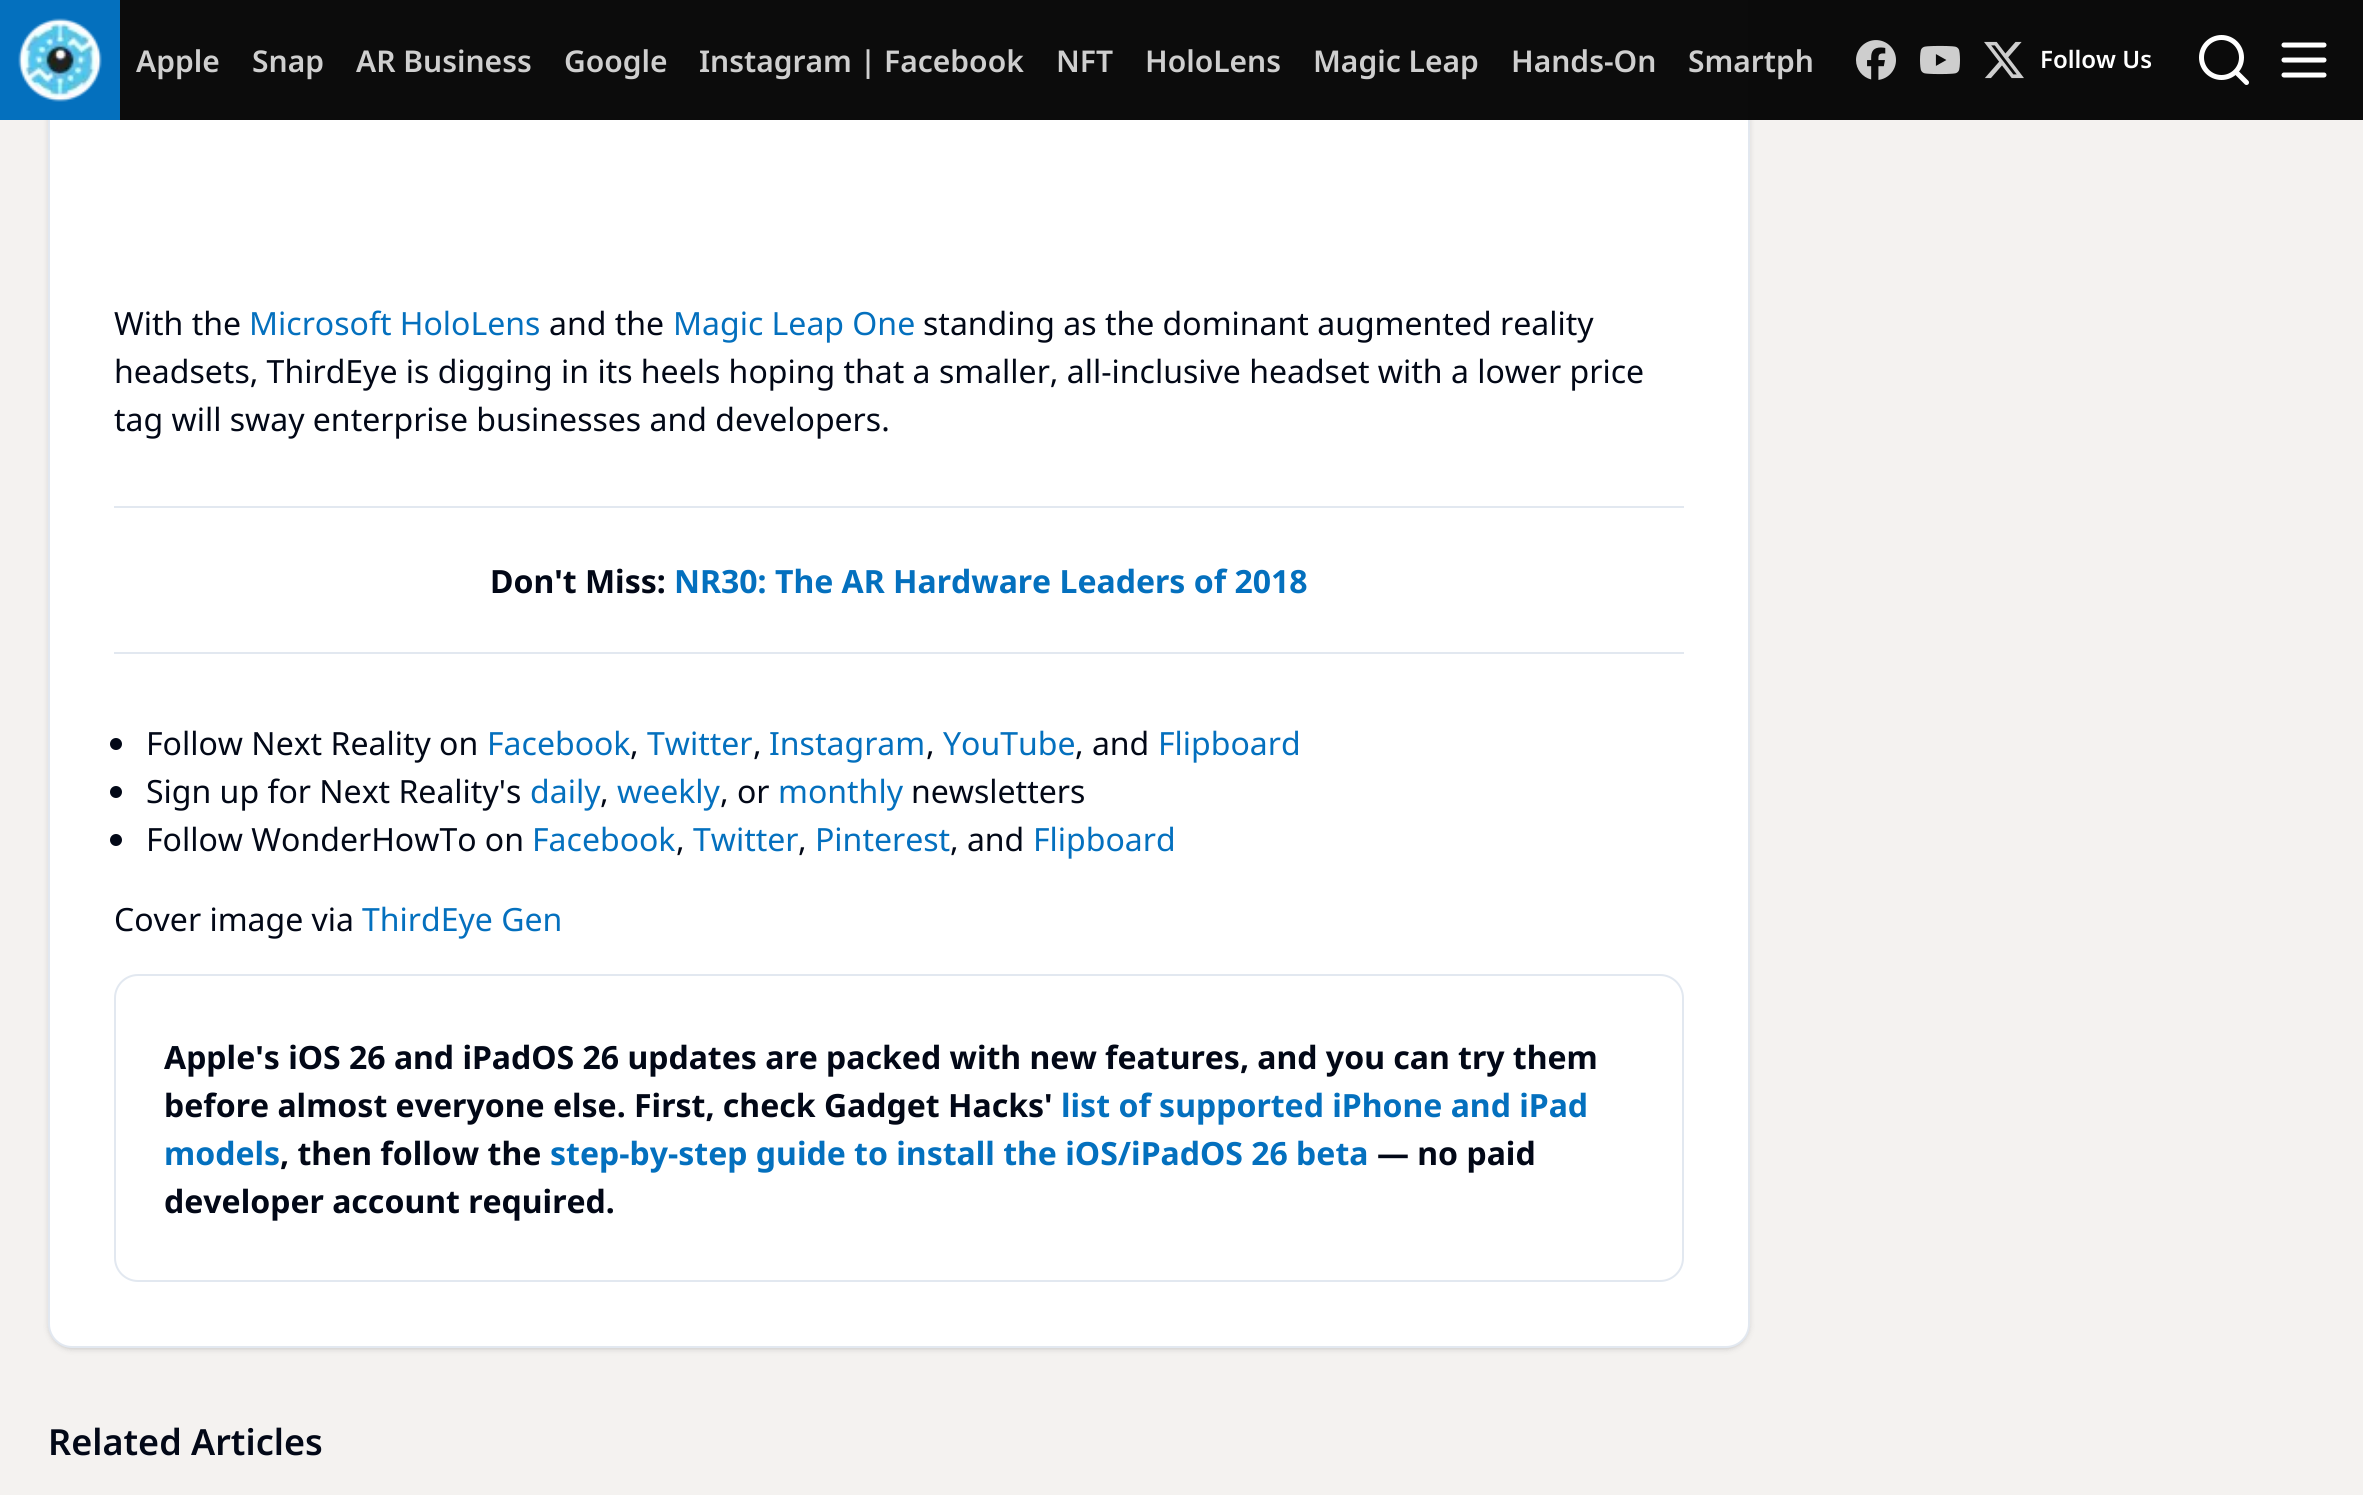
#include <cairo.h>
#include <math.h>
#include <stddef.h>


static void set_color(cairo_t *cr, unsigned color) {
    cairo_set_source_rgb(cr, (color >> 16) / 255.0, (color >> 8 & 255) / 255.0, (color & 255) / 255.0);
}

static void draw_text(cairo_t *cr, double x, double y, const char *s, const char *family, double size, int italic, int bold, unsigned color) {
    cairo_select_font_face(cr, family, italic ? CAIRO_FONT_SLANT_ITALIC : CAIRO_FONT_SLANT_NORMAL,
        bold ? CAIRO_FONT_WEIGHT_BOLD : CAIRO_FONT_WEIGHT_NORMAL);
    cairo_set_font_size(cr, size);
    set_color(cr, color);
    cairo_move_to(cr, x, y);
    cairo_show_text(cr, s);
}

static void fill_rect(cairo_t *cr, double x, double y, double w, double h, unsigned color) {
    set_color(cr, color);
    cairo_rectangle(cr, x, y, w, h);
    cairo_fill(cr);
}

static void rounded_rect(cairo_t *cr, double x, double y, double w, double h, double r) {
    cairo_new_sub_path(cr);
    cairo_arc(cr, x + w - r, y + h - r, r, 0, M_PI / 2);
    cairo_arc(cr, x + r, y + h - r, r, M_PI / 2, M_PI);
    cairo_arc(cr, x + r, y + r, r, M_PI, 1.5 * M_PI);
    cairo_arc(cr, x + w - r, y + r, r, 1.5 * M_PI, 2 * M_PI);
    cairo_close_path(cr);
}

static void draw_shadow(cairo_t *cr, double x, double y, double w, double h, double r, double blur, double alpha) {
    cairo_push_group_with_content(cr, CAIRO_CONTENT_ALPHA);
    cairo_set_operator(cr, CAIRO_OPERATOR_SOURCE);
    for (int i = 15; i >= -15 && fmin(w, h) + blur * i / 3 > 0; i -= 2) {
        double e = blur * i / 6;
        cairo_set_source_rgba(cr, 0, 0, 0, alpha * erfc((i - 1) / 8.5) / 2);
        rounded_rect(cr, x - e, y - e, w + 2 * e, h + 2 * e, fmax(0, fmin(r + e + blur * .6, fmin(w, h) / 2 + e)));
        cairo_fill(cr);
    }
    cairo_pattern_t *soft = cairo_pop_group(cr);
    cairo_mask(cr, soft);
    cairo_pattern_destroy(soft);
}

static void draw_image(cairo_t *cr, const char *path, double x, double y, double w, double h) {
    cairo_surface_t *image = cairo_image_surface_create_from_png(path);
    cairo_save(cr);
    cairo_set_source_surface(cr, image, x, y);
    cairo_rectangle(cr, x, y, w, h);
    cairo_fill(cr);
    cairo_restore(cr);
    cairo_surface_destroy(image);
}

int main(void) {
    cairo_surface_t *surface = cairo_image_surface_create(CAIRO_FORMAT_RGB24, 2363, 1495);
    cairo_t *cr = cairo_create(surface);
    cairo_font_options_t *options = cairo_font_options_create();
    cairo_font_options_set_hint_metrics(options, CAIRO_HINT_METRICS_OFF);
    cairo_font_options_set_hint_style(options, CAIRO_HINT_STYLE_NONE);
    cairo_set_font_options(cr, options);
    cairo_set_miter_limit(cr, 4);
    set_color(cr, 0xF4F2F0);
    cairo_paint(cr);
    set_color(cr, 0x000000);
    draw_shadow(cr, 50, -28, 1698, 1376, 22, 2, 0.1);
    draw_shadow(cr, 48, -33, 1702, 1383, 24, 3, 0.1);
    set_color(cr, 0xFFFFFF);
    rounded_rect(cr, 49, -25, 1700, 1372, 23);
    cairo_fill_preserve(cr);
    set_color(cr, 0xE2E8F0);
    cairo_stroke(cr);
    cairo_set_source_rgba(cr, 0, 0, 0, 0.95);
    cairo_rectangle(cr, 120, 0, 2243, 120);
    cairo_fill(cr);
    fill_rect(cr, 0, 0, 120, 120, 0x0470BE);
    draw_image(cr, "assets/img1.png", 18, 18, 84, 84);
    draw_text(cr, 136, 72, "Apple", "Noto Sans SemiBold", 30, 0, 0, 0xCFCFCF);
    draw_text(cr, 252, 72, "Snap", "Noto Sans SemiBold", 30, 0, 0, 0xCFCFCF);
    draw_text(cr, 356, 72, "AR Business", "Noto Sans SemiBold", 30, 0, 0, 0xCFCFCF);
    draw_text(cr, 564, 72, "Google", "Noto Sans SemiBold", 30, 0, 0, 0xCFCFCF);
    draw_text(cr, 699, 72, "Instagram | Facebook", "Noto Sans SemiBold", 30, 0, 0, 0xCFCFCF);
    draw_text(cr, 1056, 72, "NFT", "Noto Sans SemiBold", 30, 0, 0, 0xCFCFCF);
    draw_text(cr, 1145, 72, "HoloLens", "Noto Sans SemiBold", 30, 0, 0, 0xCFCFCF);
    draw_text(cr, 1313, 72, "Magic Leap", "Noto Sans SemiBold", 30, 0, 0, 0xCFCFCF);
    draw_text(cr, 1511, 72, "Hands-On", "Noto Sans SemiBold", 30, 0, 0, 0xCFCFCF);
    draw_text(cr, 1688, 72, "Smartph", "Noto Sans SemiBold", 30, 0, 0, 0xCFCFCF);
    draw_image(cr, "assets/img2.png", 1856, 40, 40, 40);
    draw_image(cr, "assets/img3.png", 1920, 45, 40, 30);
    draw_image(cr, "assets/img4.png", 1984, 41, 40, 38);
    draw_text(cr, 2040, 68, "Follow Us", "Noto Sans SemiBold", 24, 0, 0, 0xFFFFFF);
    cairo_new_path(cr);
    cairo_arc(cr, 2221.5, 57.5, 20, 0, 2 * M_PI);
    cairo_set_line_width(cr, 5);
    cairo_stroke(cr);
    cairo_new_path(cr);
    cairo_move_to(cr, 2246.5, 82.5);
    cairo_line_to(cr, 2236, 72);
    cairo_set_line_cap(cr, CAIRO_LINE_CAP_ROUND);
    cairo_set_line_join(cr, CAIRO_LINE_JOIN_ROUND);
    cairo_stroke(cr);
    cairo_new_path(cr);
    cairo_move_to(cr, 2284, 60);
    cairo_line_to(cr, 2324, 60);
    cairo_move_to(cr, 2284, 45);
    cairo_line_to(cr, 2324, 45);
    cairo_move_to(cr, 2284, 75);
    cairo_line_to(cr, 2324, 75);
    cairo_stroke(cr);
    draw_text(cr, 114, 335, "With the", "Noto Sans", 32, 0, 0, 0x020817);
    draw_text(cr, 249, 335, "Microsoft HoloLens", "Noto Sans", 32, 0, 0, 0x0470BE);
    draw_text(cr, 549, 335, "and the", "Noto Sans", 32, 0, 0, 0x020817);
    draw_text(cr, 673, 335, "Magic Leap One", "Noto Sans", 32, 0, 0, 0x0470BE);
    draw_text(cr, 923, 335, "standing as the dominant augmented reality", "Noto Sans", 32, 0, 0, 0x020817);
    draw_text(cr, 114, 383, "headsets, ThirdEye is digging in its heels hoping that a smaller, all-inclusive headset with a lower price", "Noto Sans", 32, 0, 0, 0x020817);
    draw_text(cr, 114, 431, "tag will sway enterprise businesses and developers.", "Noto Sans", 32, 0, 0, 0x020817);
    fill_rect(cr, 114, 506, 1570, 2, 0xE2E8F0);
    fill_rect(cr, 114, 652, 1570, 2, 0xE2E8F0);
    draw_text(cr, 490, 593, "Don't Miss:", "Noto Sans", 32, 0, 1, 0x020817);
    draw_text(cr, 674, 593, "NR30: The AR Hardware Leaders of 2018", "Noto Sans", 32, 0, 1, 0x0470BE);
    set_color(cr, 0x020817);
    cairo_new_path(cr);
    cairo_arc(cr, 116, 744, 6, 0, 2 * M_PI);
    cairo_fill(cr);
    draw_text(cr, 146, 755, "Follow Next Reality on", "Noto Sans", 32, 0, 0, 0x020817);
    draw_text(cr, 487, 755, "Facebook", "Noto Sans", 32, 0, 0, 0x0470BE);
    draw_text(cr, 647, 755, "Twitter", "Noto Sans", 32, 0, 0, 0x0470BE);
    draw_text(cr, 769, 755, "Instagram", "Noto Sans", 32, 0, 0, 0x0470BE);
    draw_text(cr, 943, 755, "YouTube", "Noto Sans", 32, 0, 0, 0x0470BE);
    draw_text(cr, 1075, 755, ", and", "Noto Sans", 32, 0, 0, 0x020817);
    draw_text(cr, 1158, 755, "Flipboard", "Noto Sans", 32, 0, 0, 0x0470BE);
    draw_text(cr, 630, 755, ",", "Noto Sans", 32, 0, 0, 0x020817);
    draw_text(cr, 753, 755, ",", "Noto Sans", 32, 0, 0, 0x020817);
    draw_text(cr, 926, 755, ",", "Noto Sans", 32, 0, 0, 0x020817);
    cairo_new_path(cr);
    cairo_arc(cr, 116, 792, 6, 0, 2 * M_PI);
    cairo_fill(cr);
    draw_text(cr, 146, 803, "Sign up for Next Reality's", "Noto Sans", 32, 0, 0, 0x020817);
    draw_text(cr, 530, 803, "daily", "Noto Sans", 32, 0, 0, 0x0470BE);
    draw_text(cr, 617, 803, "weekly", "Noto Sans", 32, 0, 0, 0x0470BE);
    draw_text(cr, 720, 803, ", or", "Noto Sans", 32, 0, 0, 0x020817);
    draw_text(cr, 778, 803, "monthly", "Noto Sans", 32, 0, 0, 0x0470BE);
    draw_text(cr, 911, 803, "newsletters", "Noto Sans", 32, 0, 0, 0x020817);
    draw_text(cr, 600, 803, ",", "Noto Sans", 32, 0, 0, 0x020817);
    cairo_new_path(cr);
    cairo_arc(cr, 116, 840, 6, 0, 2 * M_PI);
    cairo_fill(cr);
    draw_text(cr, 146, 851, "Follow WonderHowTo on", "Noto Sans", 32, 0, 0, 0x020817);
    draw_text(cr, 532, 851, "Facebook", "Noto Sans", 32, 0, 0, 0x0470BE);
    draw_text(cr, 693, 851, "Twitter", "Noto Sans", 32, 0, 0, 0x0470BE);
    draw_text(cr, 815, 851, "Pinterest", "Noto Sans", 32, 0, 0, 0x0470BE);
    draw_text(cr, 950, 851, ", and", "Noto Sans", 32, 0, 0, 0x020817);
    draw_text(cr, 1033, 851, "Flipboard", "Noto Sans", 32, 0, 0, 0x0470BE);
    draw_text(cr, 676, 851, ",", "Noto Sans", 32, 0, 0, 0x020817);
    draw_text(cr, 798, 851, ",", "Noto Sans", 32, 0, 0, 0x020817);
    draw_text(cr, 114, 931, "Cover image via", "Noto Sans", 32, 0, 0, 0x020817);
    draw_text(cr, 362, 931, "ThirdEye Gen", "Noto Sans", 32, 0, 0, 0x0470BE);
    rounded_rect(cr, 115, 975, 1568, 306, 23);
    set_color(cr, 0xE2E8F0);
    cairo_set_line_width(cr, 2);
    cairo_set_line_cap(cr, CAIRO_LINE_CAP_BUTT);
    cairo_set_line_join(cr, CAIRO_LINE_JOIN_MITER);
    cairo_stroke(cr);
    draw_text(cr, 164, 1069, "Apple's iOS 26 and iPadOS 26 updates are packed with new features, and you can try them", "Noto Sans", 32, 0, 1, 0x020817);
    draw_text(cr, 164, 1117, "before almost everyone else. First, check Gadget Hacks'", "Noto Sans", 32, 0, 1, 0x020817);
    draw_text(cr, 1061, 1117, "list of supported iPhone and iPad", "Noto Sans", 32, 0, 1, 0x0470BE);
    draw_text(cr, 164, 1165, "models", "Noto Sans", 32, 0, 1, 0x0470BE);
    draw_text(cr, 280, 1165, ", then follow the", "Noto Sans", 32, 0, 1, 0x020817);
    draw_text(cr, 550, 1165, "step-by-step guide to install the iOS/iPadOS 26 beta", "Noto Sans", 32, 0, 1, 0x0470BE);
    draw_text(cr, 1377, 1165, "— no paid", "Noto Sans", 32, 0, 1, 0x020817);
    draw_text(cr, 164, 1213, "developer account required.", "Noto Sans", 32, 0, 1, 0x020817);
    draw_text(cr, 48, 1455, "Related Articles", "Noto Sans SemiBold", 36, 0, 0, 0x020817);
    cairo_surface_write_to_png(surface, "output.png");
    cairo_font_options_destroy(options);
    cairo_destroy(cr);
    cairo_surface_destroy(surface);
    return 0;
}
